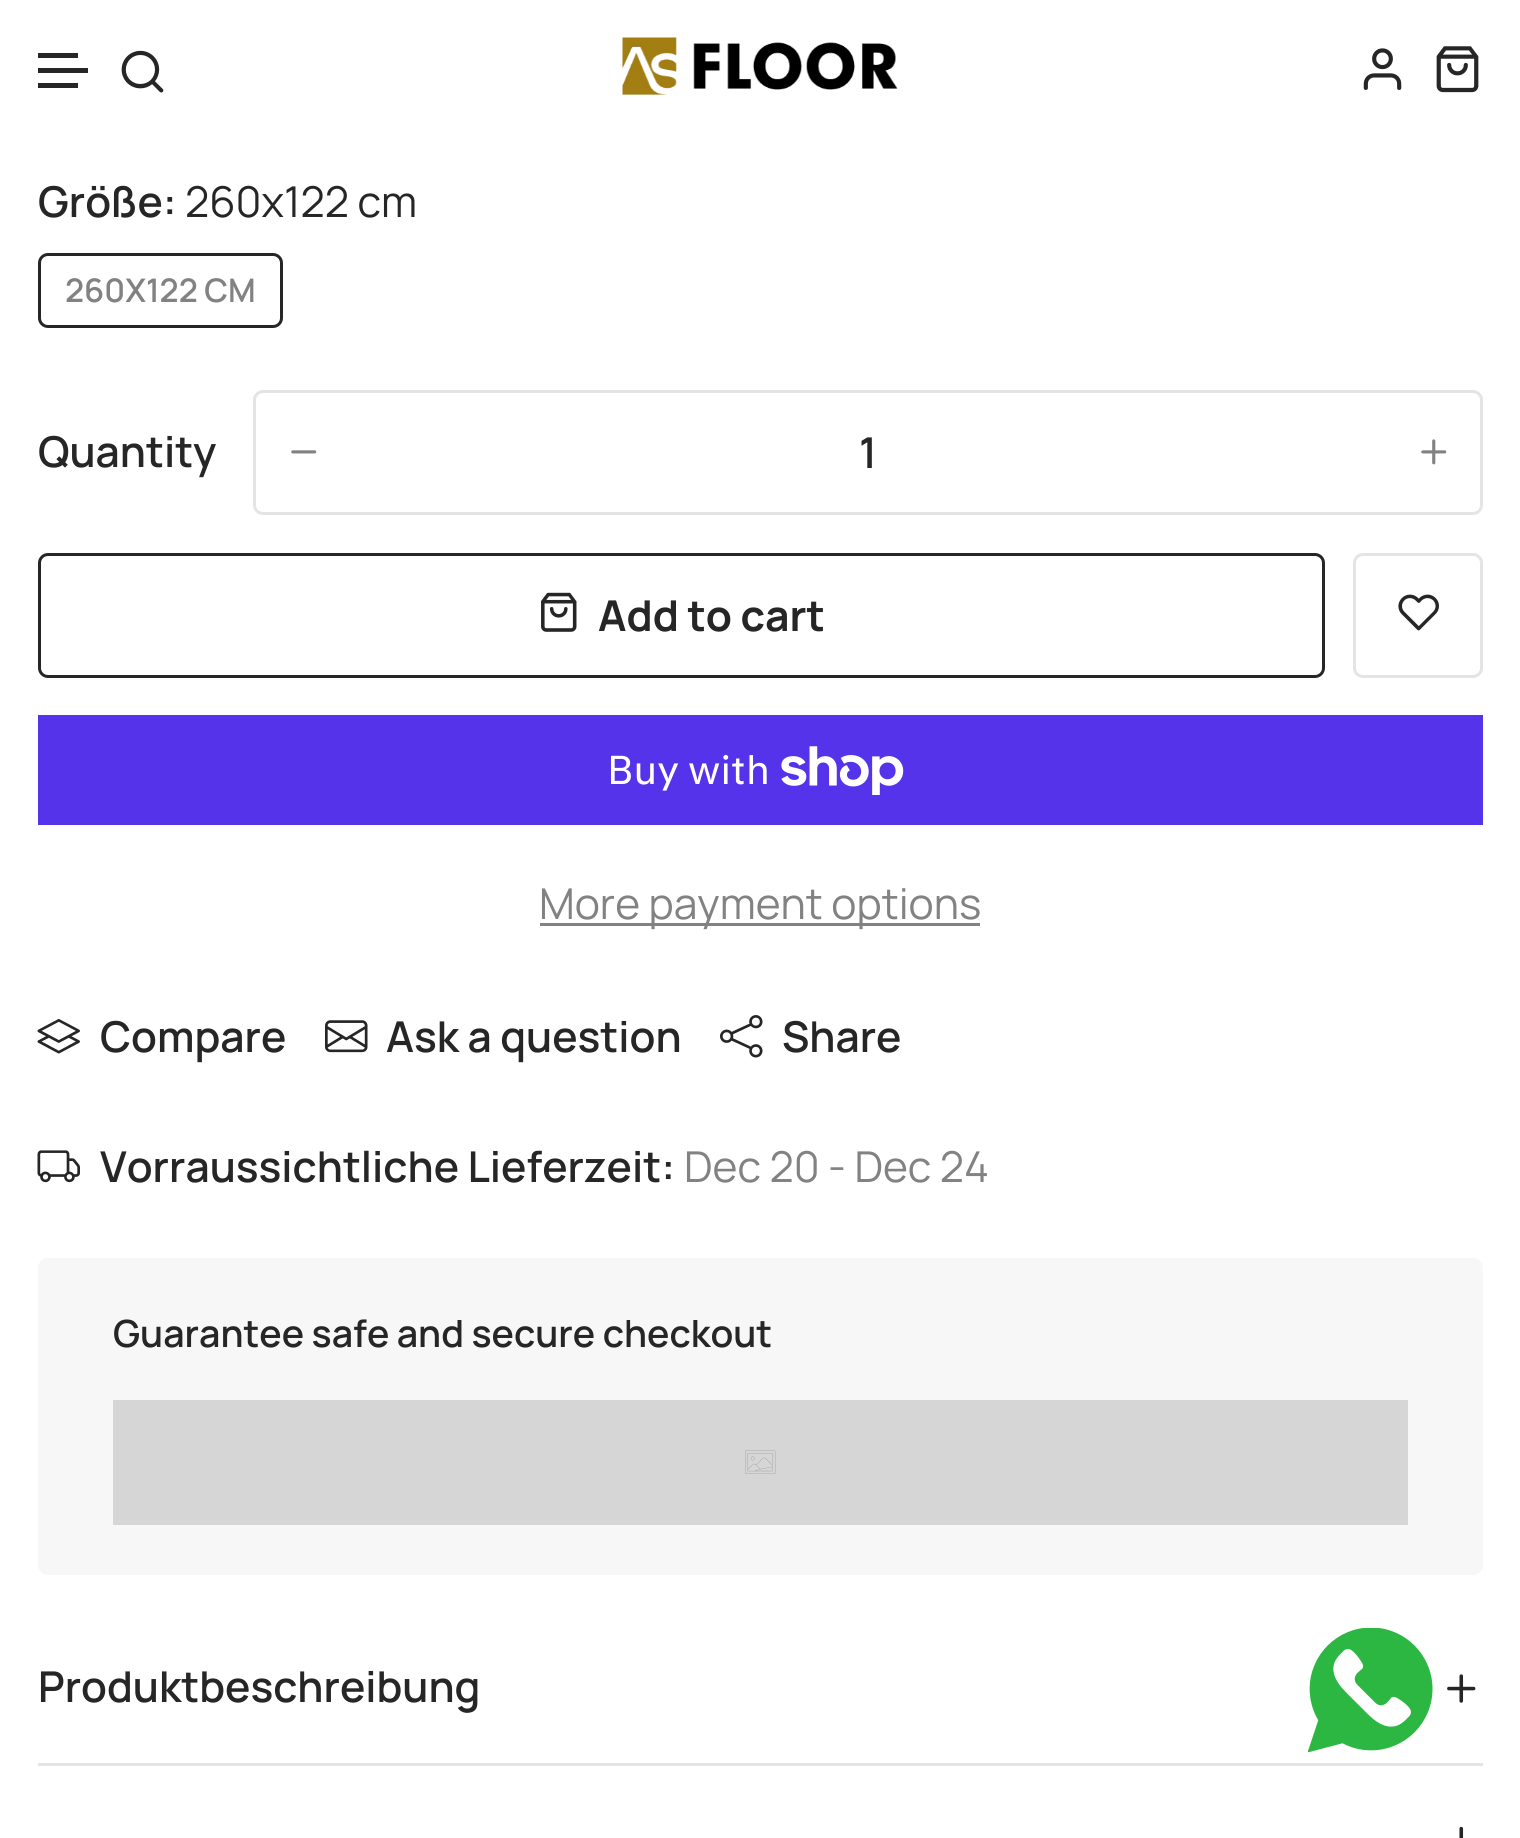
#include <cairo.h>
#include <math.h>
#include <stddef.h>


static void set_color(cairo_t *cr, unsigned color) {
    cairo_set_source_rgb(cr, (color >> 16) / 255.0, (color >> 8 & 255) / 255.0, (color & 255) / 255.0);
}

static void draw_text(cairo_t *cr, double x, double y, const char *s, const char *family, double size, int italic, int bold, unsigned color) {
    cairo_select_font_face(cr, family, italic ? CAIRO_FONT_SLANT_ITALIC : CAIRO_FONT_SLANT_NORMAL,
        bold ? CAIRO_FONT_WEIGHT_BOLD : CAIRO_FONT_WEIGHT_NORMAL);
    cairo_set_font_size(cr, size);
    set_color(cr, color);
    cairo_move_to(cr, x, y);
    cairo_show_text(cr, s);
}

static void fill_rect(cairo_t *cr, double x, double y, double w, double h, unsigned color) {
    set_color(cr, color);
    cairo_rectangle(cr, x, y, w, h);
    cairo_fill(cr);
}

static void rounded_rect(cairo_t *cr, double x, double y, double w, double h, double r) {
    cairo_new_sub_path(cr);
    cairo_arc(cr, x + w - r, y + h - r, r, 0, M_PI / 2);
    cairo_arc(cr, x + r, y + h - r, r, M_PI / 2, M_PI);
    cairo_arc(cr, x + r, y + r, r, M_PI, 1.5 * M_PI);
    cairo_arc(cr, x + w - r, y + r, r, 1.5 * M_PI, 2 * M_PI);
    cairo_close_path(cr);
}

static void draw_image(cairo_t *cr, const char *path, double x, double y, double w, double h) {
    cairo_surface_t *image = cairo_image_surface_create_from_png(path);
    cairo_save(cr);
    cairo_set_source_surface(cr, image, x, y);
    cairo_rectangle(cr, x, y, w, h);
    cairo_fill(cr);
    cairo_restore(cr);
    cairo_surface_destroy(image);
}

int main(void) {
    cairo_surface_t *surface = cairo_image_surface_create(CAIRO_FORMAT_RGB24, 1520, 1838);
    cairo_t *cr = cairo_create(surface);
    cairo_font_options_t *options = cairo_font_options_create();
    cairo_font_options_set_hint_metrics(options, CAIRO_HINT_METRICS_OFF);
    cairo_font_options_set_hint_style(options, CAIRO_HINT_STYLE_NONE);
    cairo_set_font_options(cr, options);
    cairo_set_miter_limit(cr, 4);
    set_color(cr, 0xFFFFFF);
    cairo_paint(cr);
    fill_rect(cr, 38, 53, 40, 5, 0x262626);
    fill_rect(cr, 38, 68, 50, 5, 0x262626);
    fill_rect(cr, 38, 83, 40, 5, 0x262626);
    draw_image(cr, "assets/img1.png", 121, 50, 43, 43);
    draw_image(cr, "assets/img2.png", 622, 37, 276, 58);
    draw_image(cr, "assets/img3.png", 1363, 48, 39, 42);
    draw_image(cr, "assets/img4.png", 1436, 46, 43, 47);
    draw_text(cr, 38, 217, "Größe:", "Manrope SemiBold", 42.5, 0, 0, 0x262626);
    draw_text(cr, 185, 217, "260x122 cm", "Manrope", 42.5, 0, 0, 0x262626);
    rounded_rect(cr, 39.5, 254.5, 242, 72, 8.5);
    cairo_set_line_width(cr, 3);
    cairo_stroke(cr);
    draw_text(cr, 65, 302, "260X122 CM", "Manrope SemiBold", 32.5, 0, 0, 0x828282);
    draw_text(cr, 38, 467, "Quantity", "Manrope SemiBold", 42.5, 0, 0, 0x262626);
    rounded_rect(cr, 254.5, 391.5, 1227, 122, 8.5);
    set_color(cr, 0xE4E4E4);
    cairo_stroke(cr);
    draw_image(cr, "assets/img5.png", 291, 450, 26, 4);
    draw_text(cr, 859, 468, "1", "Manrope SemiBold", 42.5, 0, 0, 0x262626);
    draw_image(cr, "assets/img6.png", 1421, 439, 26, 26);
    rounded_rect(cr, 39.5, 554.5, 1284, 122, 8.5);
    cairo_stroke(cr);
    draw_image(cr, "assets/img7.png", 541, 592, 36, 40);
    draw_text(cr, 598, 631, "Add to cart", "Manrope", 42.5, 0, 1, 0x262626);
    rounded_rect(cr, 1354.5, 554.5, 127, 122, 8.5);
    set_color(cr, 0xE4E4E4);
    cairo_stroke(cr);
    draw_image(cr, "assets/img8.png", 1398, 594, 41, 37);
    fill_rect(cr, 38, 715, 1445, 110, 0x5433EB);
    draw_text(cr, 607, 784, "Buy with", "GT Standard", 40, 0, 0, 0xFFFFFF);
    draw_image(cr, "assets/img9.png", 781, 746, 123, 49);
    fill_rect(cr, 540, 923, 440, 3, 0x828282);
    draw_text(cr, 539, 919, "More payment options", "Manrope", 42.5, 0, 0, 0x828282);
    draw_image(cr, "assets/img10.png", 37, 1019, 43, 35);
    draw_text(cr, 100, 1052, "Compare", "Manrope SemiBold", 42.5, 0, 0, 0x262626);
    draw_image(cr, "assets/img11.png", 325, 1020, 43, 33);
    draw_text(cr, 386, 1052, "Ask a question", "Manrope SemiBold", 42.5, 0, 0, 0x262626);
    draw_image(cr, "assets/img12.png", 720, 1015, 43, 43);
    draw_text(cr, 782, 1052, "Share", "Manrope SemiBold", 42.5, 0, 0, 0x262626);
    draw_image(cr, "assets/img13.png", 37, 1150, 43, 33);
    draw_text(cr, 100, 1182, "Vorraussichtliche Lieferzeit:", "Manrope SemiBold", 42.5, 0, 0, 0x262626);
    draw_text(cr, 684, 1182, "Dec 20 - Dec 24", "Manrope", 42.5, 0, 0, 0x828282);
    set_color(cr, 0xF7F7F7);
    rounded_rect(cr, 38, 1258, 1445, 317, 10);
    cairo_fill(cr);
    draw_text(cr, 113, 1347, "Guarantee safe and secure checkout", "Manrope SemiBold", 37.5, 0, 0, 0x262626);
    fill_rect(cr, 113, 1400, 1295, 125, 0xD6D6D6);
    draw_image(cr, "assets/img14.png", 745, 1450, 31, 24);
    draw_text(cr, 38, 1702, "Produktbeschreibung", "Manrope SemiBold", 42.5, 0, 0, 0x262626);
    draw_image(cr, "assets/img15.png", 1447, 1674, 29, 29);
    fill_rect(cr, 38, 1763, 1445, 3, 0xE4E4E4);
    draw_image(cr, "assets/img16.png", 1459, 1826, 5, 12);
    draw_image(cr, "assets/img17.png", 1308, 1628, 125, 125);
    cairo_surface_write_to_png(surface, "output.png");
    cairo_font_options_destroy(options);
    cairo_destroy(cr);
    cairo_surface_destroy(surface);
    return 0;
}
